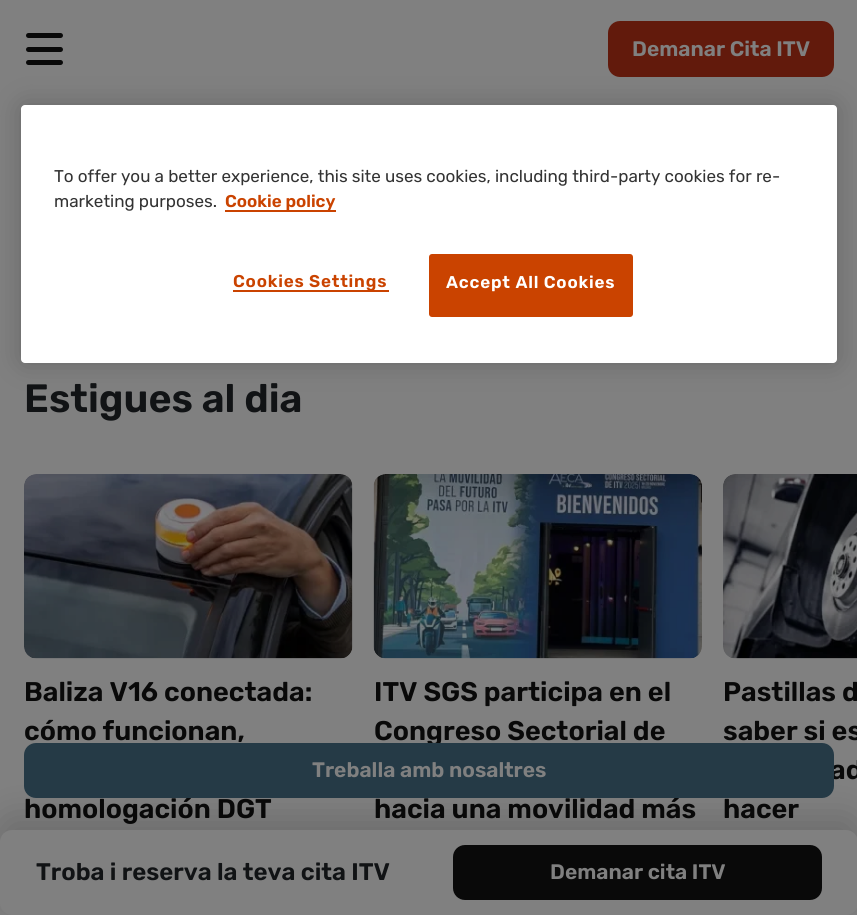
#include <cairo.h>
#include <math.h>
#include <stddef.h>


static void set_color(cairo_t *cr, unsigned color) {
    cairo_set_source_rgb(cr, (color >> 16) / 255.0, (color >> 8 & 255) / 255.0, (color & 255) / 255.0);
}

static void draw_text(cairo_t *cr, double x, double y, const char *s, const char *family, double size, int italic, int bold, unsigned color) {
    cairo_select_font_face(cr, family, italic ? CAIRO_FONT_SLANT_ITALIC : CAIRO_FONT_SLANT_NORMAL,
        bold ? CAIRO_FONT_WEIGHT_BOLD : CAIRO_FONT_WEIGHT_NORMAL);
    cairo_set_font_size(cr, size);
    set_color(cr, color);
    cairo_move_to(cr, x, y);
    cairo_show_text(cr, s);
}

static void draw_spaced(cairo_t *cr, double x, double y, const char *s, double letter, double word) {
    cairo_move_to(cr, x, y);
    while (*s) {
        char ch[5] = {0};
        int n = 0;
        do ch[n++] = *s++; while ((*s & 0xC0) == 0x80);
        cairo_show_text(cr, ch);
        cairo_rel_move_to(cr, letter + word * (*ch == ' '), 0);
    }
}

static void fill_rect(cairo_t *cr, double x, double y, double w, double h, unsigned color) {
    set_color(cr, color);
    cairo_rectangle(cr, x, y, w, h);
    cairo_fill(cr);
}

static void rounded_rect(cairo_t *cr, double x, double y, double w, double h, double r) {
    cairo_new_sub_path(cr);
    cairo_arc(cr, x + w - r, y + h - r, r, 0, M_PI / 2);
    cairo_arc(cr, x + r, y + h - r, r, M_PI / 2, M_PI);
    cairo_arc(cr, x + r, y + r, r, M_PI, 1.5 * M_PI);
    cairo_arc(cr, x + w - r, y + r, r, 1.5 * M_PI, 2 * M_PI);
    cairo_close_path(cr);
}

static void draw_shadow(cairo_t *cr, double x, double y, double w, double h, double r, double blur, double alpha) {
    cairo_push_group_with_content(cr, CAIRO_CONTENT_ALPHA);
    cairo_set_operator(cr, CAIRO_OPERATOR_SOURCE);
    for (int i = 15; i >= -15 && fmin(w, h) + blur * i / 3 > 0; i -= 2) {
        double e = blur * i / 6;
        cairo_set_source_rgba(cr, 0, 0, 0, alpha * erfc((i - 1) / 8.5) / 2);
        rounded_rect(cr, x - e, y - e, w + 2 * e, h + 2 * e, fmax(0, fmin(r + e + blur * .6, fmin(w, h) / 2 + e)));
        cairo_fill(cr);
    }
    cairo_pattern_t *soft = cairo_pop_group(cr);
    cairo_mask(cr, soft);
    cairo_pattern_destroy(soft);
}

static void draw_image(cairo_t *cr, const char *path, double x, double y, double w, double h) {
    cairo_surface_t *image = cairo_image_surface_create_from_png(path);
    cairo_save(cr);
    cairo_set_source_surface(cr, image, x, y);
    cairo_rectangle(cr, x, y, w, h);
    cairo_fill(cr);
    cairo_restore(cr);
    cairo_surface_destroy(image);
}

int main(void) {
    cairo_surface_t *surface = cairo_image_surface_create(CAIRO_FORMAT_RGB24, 857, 915);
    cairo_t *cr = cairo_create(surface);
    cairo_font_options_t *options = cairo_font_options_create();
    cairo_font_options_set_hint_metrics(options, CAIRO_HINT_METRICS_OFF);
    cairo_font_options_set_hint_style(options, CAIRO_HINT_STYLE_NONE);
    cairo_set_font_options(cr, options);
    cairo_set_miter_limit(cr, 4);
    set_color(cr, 0x808080);
    cairo_paint(cr);
    set_color(cr, 0x090909);
    rounded_rect(cr, 26, 33, 37, 5, 2.5);
    cairo_fill(cr);
    rounded_rect(cr, 26, 47, 37, 5, 2.5);
    cairo_fill(cr);
    rounded_rect(cr, 26, 60, 37, 5, 2.5);
    cairo_fill(cr);
    set_color(cr, 0x621A0C);
    rounded_rect(cr, 608, 21, 226, 56, 12);
    cairo_fill(cr);
    draw_text(cr, 632, 56, "Demanar Cita ITV", "Rubik SemiBold", 21, 0, 0, 0x808080);
    draw_text(cr, 24, 818, "homologación DGT", "Rubik SemiBold", 27, 0, 0, 0x090909);
    draw_text(cr, 374, 740, "Congreso Sectorial de", "Rubik SemiBold", 27, 0, 0, 0x090909);
    draw_text(cr, 374, 818, "hacia una movilidad más", "Rubik SemiBold", 27, 0, 0, 0x090909);
    draw_text(cr, 830, 779, "ad", "Rubik SemiBold", 27, 0, 0, 0x090909);
    set_color(cr, 0x000000);
    draw_shadow(cr, 0, 818, 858, 85, 12, 18, 0.16);
    set_color(cr, 0x253A46);
    rounded_rect(cr, 24, 743, 810, 55, 12);
    cairo_fill(cr);
    draw_text(cr, 312, 777, "Treballa amb nosaltres", "Rubik SemiBold", 21, 0, 0, 0x808080);
    draw_text(cr, 24, 412, "Estigues al dia", "Rubik SemiBold", 39.5, 0, 0, 0x111315);
    draw_image(cr, "assets/img1.png", 24, 474, 329, 185);
    draw_text(cr, 24, 701, "Baliza V16 conectada:", "Rubik SemiBold", 27, 0, 0, 0x090909);
    draw_text(cr, 24, 740, "cómo funcionan,", "Rubik SemiBold", 27, 0, 0, 0x090909);
    draw_image(cr, "assets/img2.png", 373, 474, 329, 185);
    draw_text(cr, 374, 701, "ITV SGS participa en el", "Rubik SemiBold", 27, 0, 0, 0x090909);
    draw_image(cr, "assets/img3.png", 723, 474, 134, 185);
    draw_text(cr, 723, 701, "Pastillas d", "Rubik SemiBold", 27, 0, 0, 0x090909);
    draw_text(cr, 723, 740, "saber si es", "Rubik SemiBold", 27, 0, 0, 0x090909);
    draw_text(cr, 723, 818, "hacer", "Rubik SemiBold", 27, 0, 0, 0x090909);
    set_color(cr, 0x808080);
    rounded_rect(cr, 0, 830, 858, 85, 12);
    cairo_fill(cr);
    draw_text(cr, 36, 880, "Troba i reserva la teva cita ITV", "Rubik SemiBold", 24, 0, 0, 0x111315);
    set_color(cr, 0x090909);
    rounded_rect(cr, 453, 845, 369, 55, 12);
    cairo_fill(cr);
    draw_text(cr, 550, 879, "Demanar cita ITV", "Rubik SemiBold", 21, 0, 0, 0x808080);
    set_color(cr, 0x000000);
    draw_shadow(cr, 21, 105, 816, 258, 4, 13.5, 0.2);
    set_color(cr, 0xFFFFFF);
    rounded_rect(cr, 21, 105, 816, 258, 4);
    cairo_fill(cr);
    draw_text(cr, 54, 182, "To offer you a better experience, this site uses cookies, including third-party cookies for re-", "Rubik", 17.05, 0, 0, 0x333333);
    draw_text(cr, 54, 207, "marketing purposes.", "Rubik", 17.05, 0, 0, 0x333333);
    fill_rect(cr, 225, 210, 111, 2, 0xCA4300);
    draw_text(cr, 225, 207, "Cookie policy", "Rubik SemiBold", 17.05, 0, 0, 0xCA4300);
    fill_rect(cr, 233, 290, 156, 2, 0xCA4300);
    draw_spaced(cr, 233, 287, "Cookies Settings", 0.8, 0);
    rounded_rect(cr, 430, 255, 202, 61, 2);
    cairo_fill_preserve(cr);
    cairo_stroke(cr);
    set_color(cr, 0xFFFFFF);
    draw_spaced(cr, 446, 288, "Accept All Cookies", 0.8, 0);
    cairo_surface_write_to_png(surface, "output.png");
    cairo_font_options_destroy(options);
    cairo_destroy(cr);
    cairo_surface_destroy(surface);
    return 0;
}
